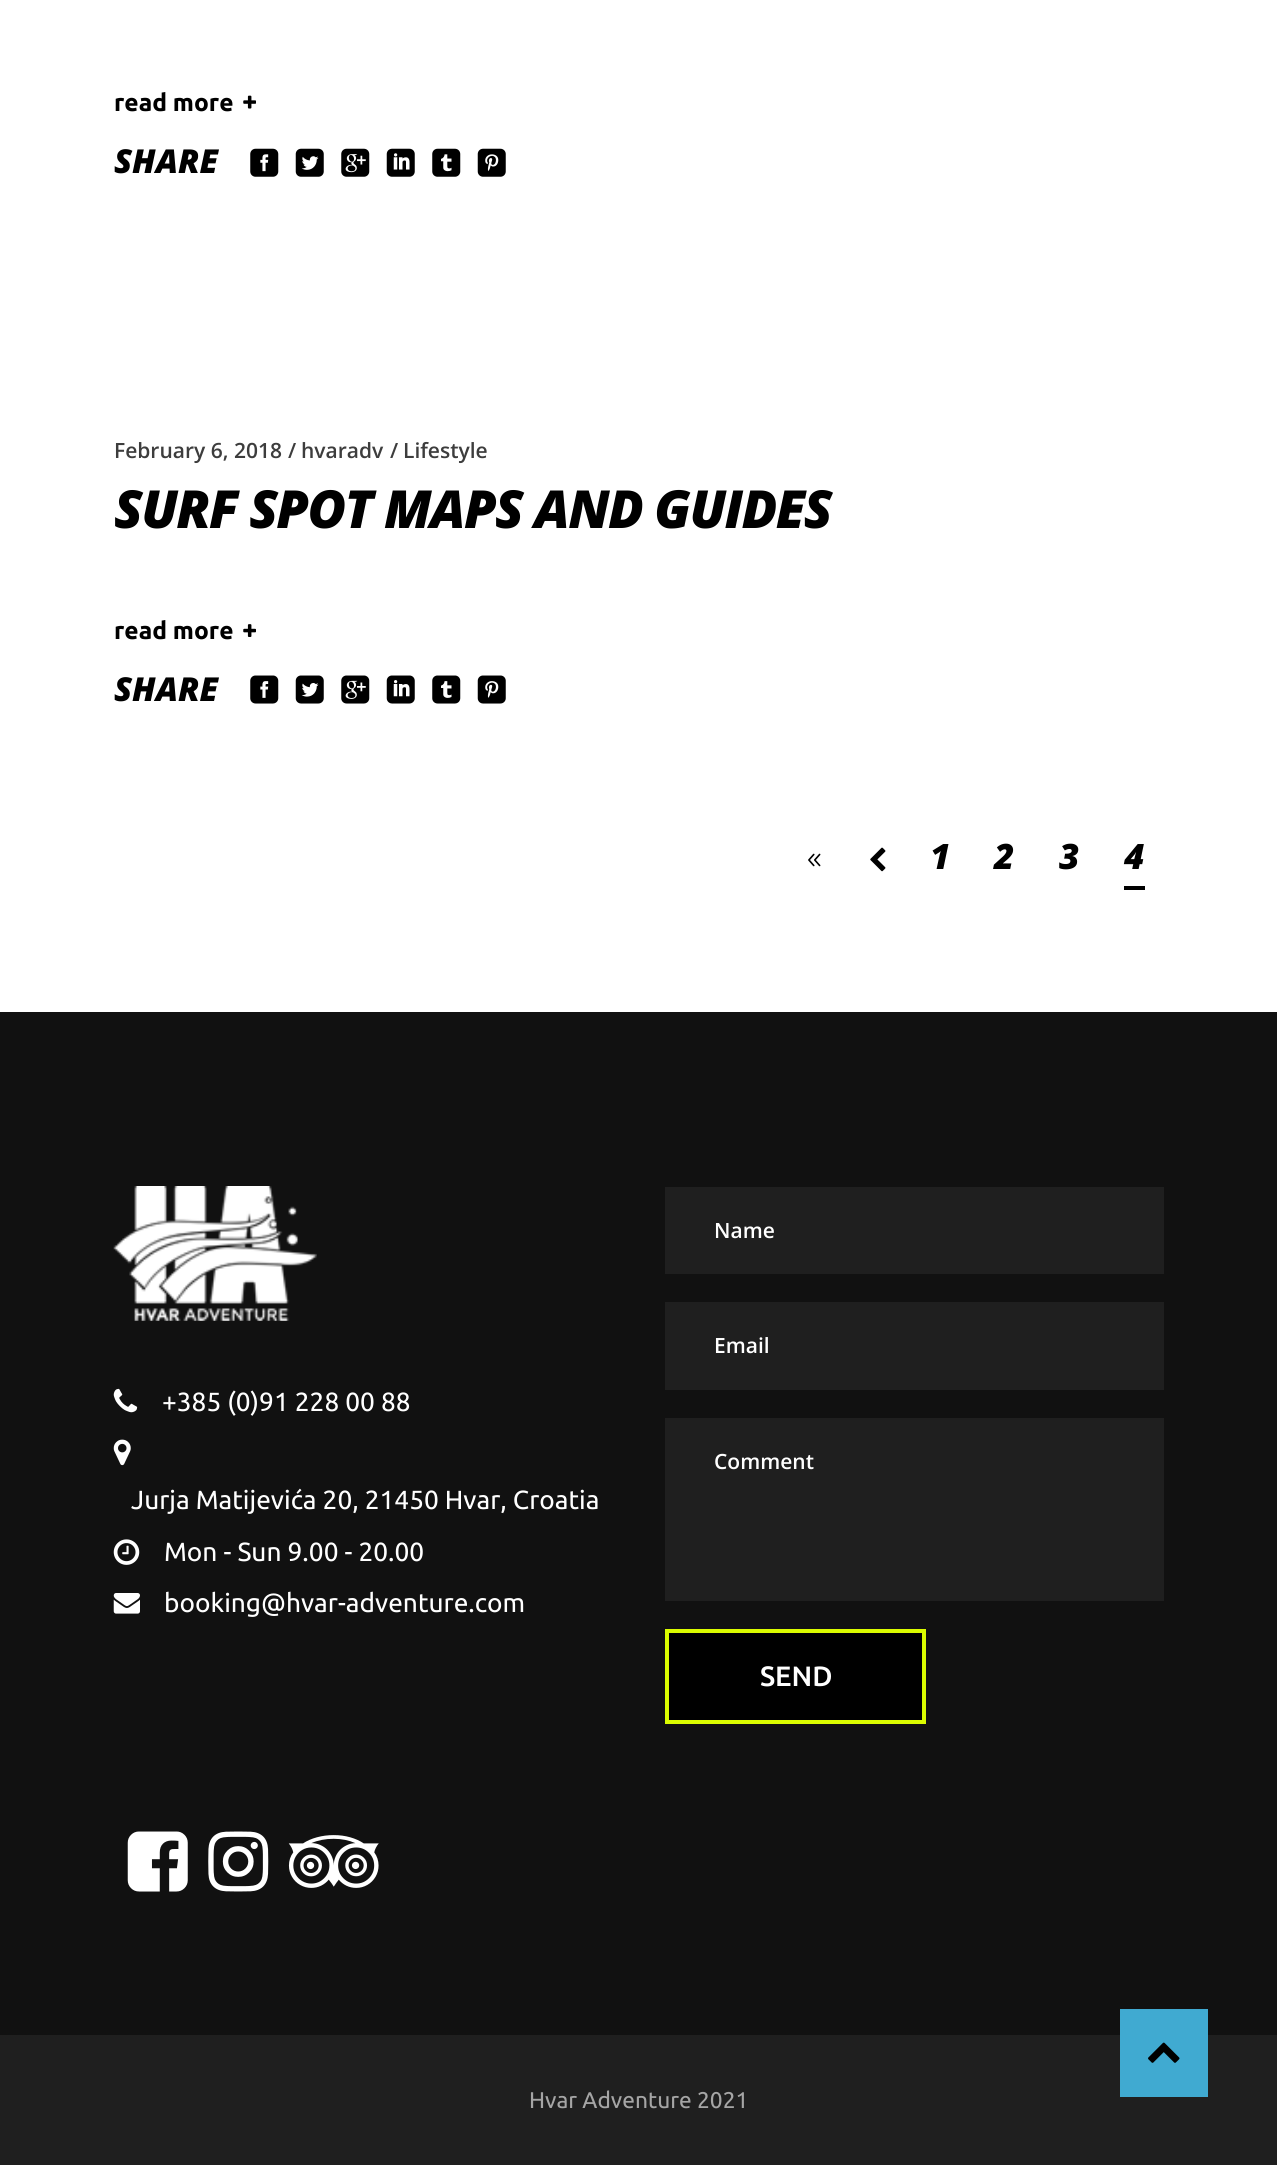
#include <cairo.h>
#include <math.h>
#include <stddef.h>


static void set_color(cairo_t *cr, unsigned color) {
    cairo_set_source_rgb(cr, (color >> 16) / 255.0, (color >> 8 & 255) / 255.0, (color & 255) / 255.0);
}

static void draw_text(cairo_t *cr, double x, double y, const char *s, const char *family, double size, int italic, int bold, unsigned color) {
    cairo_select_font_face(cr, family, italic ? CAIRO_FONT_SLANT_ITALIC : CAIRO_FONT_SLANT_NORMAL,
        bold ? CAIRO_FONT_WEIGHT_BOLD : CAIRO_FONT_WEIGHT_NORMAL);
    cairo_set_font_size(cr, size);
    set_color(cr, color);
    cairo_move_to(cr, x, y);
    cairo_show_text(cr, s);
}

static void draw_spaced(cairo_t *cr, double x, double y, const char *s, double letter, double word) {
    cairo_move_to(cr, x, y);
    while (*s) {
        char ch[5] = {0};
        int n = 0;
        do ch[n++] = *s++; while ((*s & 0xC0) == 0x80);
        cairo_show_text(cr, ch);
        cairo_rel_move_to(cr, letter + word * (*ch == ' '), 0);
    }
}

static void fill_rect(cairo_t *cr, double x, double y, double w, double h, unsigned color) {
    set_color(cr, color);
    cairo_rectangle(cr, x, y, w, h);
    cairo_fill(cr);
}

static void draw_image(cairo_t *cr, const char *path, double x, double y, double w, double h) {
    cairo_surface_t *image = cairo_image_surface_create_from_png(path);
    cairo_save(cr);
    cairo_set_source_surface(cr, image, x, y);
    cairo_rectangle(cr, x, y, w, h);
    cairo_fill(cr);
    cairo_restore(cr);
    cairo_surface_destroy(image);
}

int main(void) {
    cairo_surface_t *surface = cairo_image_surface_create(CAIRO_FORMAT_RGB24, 1277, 2165);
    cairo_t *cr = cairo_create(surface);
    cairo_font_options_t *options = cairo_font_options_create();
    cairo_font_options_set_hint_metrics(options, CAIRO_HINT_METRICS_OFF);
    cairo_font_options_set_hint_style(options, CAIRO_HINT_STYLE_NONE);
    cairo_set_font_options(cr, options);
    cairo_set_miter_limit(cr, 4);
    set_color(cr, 0xFFFFFF);
    cairo_paint(cr);
    draw_text(cr, 114, 111, "read more", "Ubuntu", 24.5, 0, 1, 0x000000);
    draw_image(cr, "assets/img1.png", 243, 95, 13, 14);
    draw_text(cr, 114, 173, "SHARE", "Open Sans ExtraBold", 33, 1, 0, 0x000000);
    draw_image(cr, "assets/img2.png", 250, 148, 29, 29);
    draw_image(cr, "assets/img3.png", 295, 148, 29, 29);
    draw_image(cr, "assets/img4.png", 341, 148, 29, 29);
    draw_image(cr, "assets/img5.png", 386, 148, 29, 29);
    draw_image(cr, "assets/img6.png", 432, 148, 29, 29);
    draw_image(cr, "assets/img7.png", 477, 148, 29, 29);
    draw_text(cr, 114, 458, "February 6, 2018", "Open Sans SemiBold", 21, 0, 0, 0x3D3D3D);
    draw_text(cr, 288, 458, "/", "Open Sans SemiBold", 21, 0, 0, 0x3D3D3D);
    draw_text(cr, 301, 458, "hvaradv", "Open Sans SemiBold", 21, 0, 0, 0x3D3D3D);
    draw_text(cr, 390, 458, "/", "Open Sans SemiBold", 21, 0, 0, 0x3D3D3D);
    draw_text(cr, 403, 458, "Lifestyle", "Open Sans SemiBold", 21, 0, 0, 0x3D3D3D);
    cairo_select_font_face(cr, "Open Sans ExtraBold", CAIRO_FONT_SLANT_ITALIC, CAIRO_FONT_WEIGHT_NORMAL);
    cairo_set_font_size(cr, 52.5);
    set_color(cr, 0x000000);
    draw_spaced(cr, 114, 528, "SURF SPOT MAPS AND GUIDES", -1.6, 0);
    draw_text(cr, 114, 639, "read more", "Ubuntu", 24.5, 0, 1, 0x000000);
    draw_image(cr, "assets/img8.png", 243, 624, 13, 13);
    draw_text(cr, 114, 701, "SHARE", "Open Sans ExtraBold", 33, 1, 0, 0x000000);
    draw_image(cr, "assets/img9.png", 250, 675, 29, 29);
    draw_image(cr, "assets/img10.png", 295, 675, 29, 29);
    draw_image(cr, "assets/img11.png", 341, 675, 29, 29);
    draw_image(cr, "assets/img12.png", 386, 675, 29, 29);
    draw_image(cr, "assets/img13.png", 432, 675, 29, 29);
    draw_image(cr, "assets/img14.png", 477, 675, 29, 29);
    draw_image(cr, "assets/img15.png", 808, 853, 13, 14);
    draw_image(cr, "assets/img16.png", 870, 847, 16, 25);
    draw_text(cr, 930, 869, "1", "Open Sans ExtraBold", 35, 1, 0, 0x000000);
    draw_text(cr, 994, 869, "2", "Open Sans ExtraBold", 35, 1, 0, 0x000000);
    draw_text(cr, 1059, 869, "3", "Open Sans ExtraBold", 35, 1, 0, 0x000000);
    draw_text(cr, 1124, 869, "4", "Open Sans ExtraBold", 35, 1, 0, 0x000000);
    fill_rect(cr, 1124, 886, 21, 4, 0x000000);
    fill_rect(cr, 0, 1012, 1277, 1023, 0x111111);
    draw_image(cr, "assets/img17.png", 113, 1186, 204, 135);
    draw_image(cr, "assets/img18.png", 113, 1388, 25, 25);
    draw_text(cr, 162, 1411, "+385 (0)91 228 00 88", "Ubuntu", 26.25, 0, 0, 0xFFFFFF);
    draw_image(cr, "assets/img19.png", 113, 1439, 18, 27);
    draw_text(cr, 131, 1509, "Jurja Matijevića 20, 21450 Hvar, Croatia", "Ubuntu", 26.25, 0, 0, 0xFFFFFF);
    draw_image(cr, "assets/img20.png", 113, 1539, 27, 26);
    draw_text(cr, 164, 1561, "Mon - Sun 9.00 - 20.00", "Ubuntu", 26.25, 0, 0, 0xFFFFFF);
    draw_image(cr, "assets/img21.png", 113, 1593, 27, 21);
    draw_text(cr, 164, 1612, "booking@hvar-adventure.com", "Ubuntu", 26.25, 0, 0, 0xFFFFFF);
    fill_rect(cr, 665, 1187, 499, 87, 0x1F1F1F);
    draw_text(cr, 714, 1238, "Name", "Open Sans SemiBold", 21, 0, 0, 0xFFFFFF);
    fill_rect(cr, 665, 1302, 499, 88, 0x1F1F1F);
    draw_text(cr, 714, 1353, "Email", "Open Sans SemiBold", 21, 0, 0, 0xFFFFFF);
    fill_rect(cr, 665, 1418, 499, 183, 0x1F1F1F);
    draw_text(cr, 714, 1469, "Comment", "Open Sans SemiBold", 21, 0, 0, 0xFFFFFF);
    set_color(cr, 0x000000);
    cairo_rectangle(cr, 667, 1631, 257, 91);
    cairo_fill_preserve(cr);
    set_color(cr, 0xDBFC00);
    cairo_set_line_width(cr, 4);
    cairo_stroke(cr);
    draw_text(cr, 760, 1686, "SEND", "Ubuntu Medium", 28, 0, 0, 0xFFFFFF);
    draw_image(cr, "assets/img22.png", 127, 1831, 61, 61);
    draw_image(cr, "assets/img23.png", 208, 1831, 61, 61);
    draw_image(cr, "assets/img24.png", 288, 1835, 91, 53);
    fill_rect(cr, 0, 2035, 1277, 130, 0x1F1F1F);
    draw_text(cr, 529, 2108, "Hvar Adventure 2021", "Ubuntu", 22.75, 0, 0, 0xA5A5A5);
    fill_rect(cr, 1120, 2009, 88, 88, 0x40AAD1);
    draw_image(cr, "assets/img25.png", 1148, 2042, 32, 21);
    cairo_surface_write_to_png(surface, "output.png");
    cairo_font_options_destroy(options);
    cairo_destroy(cr);
    cairo_surface_destroy(surface);
    return 0;
}
